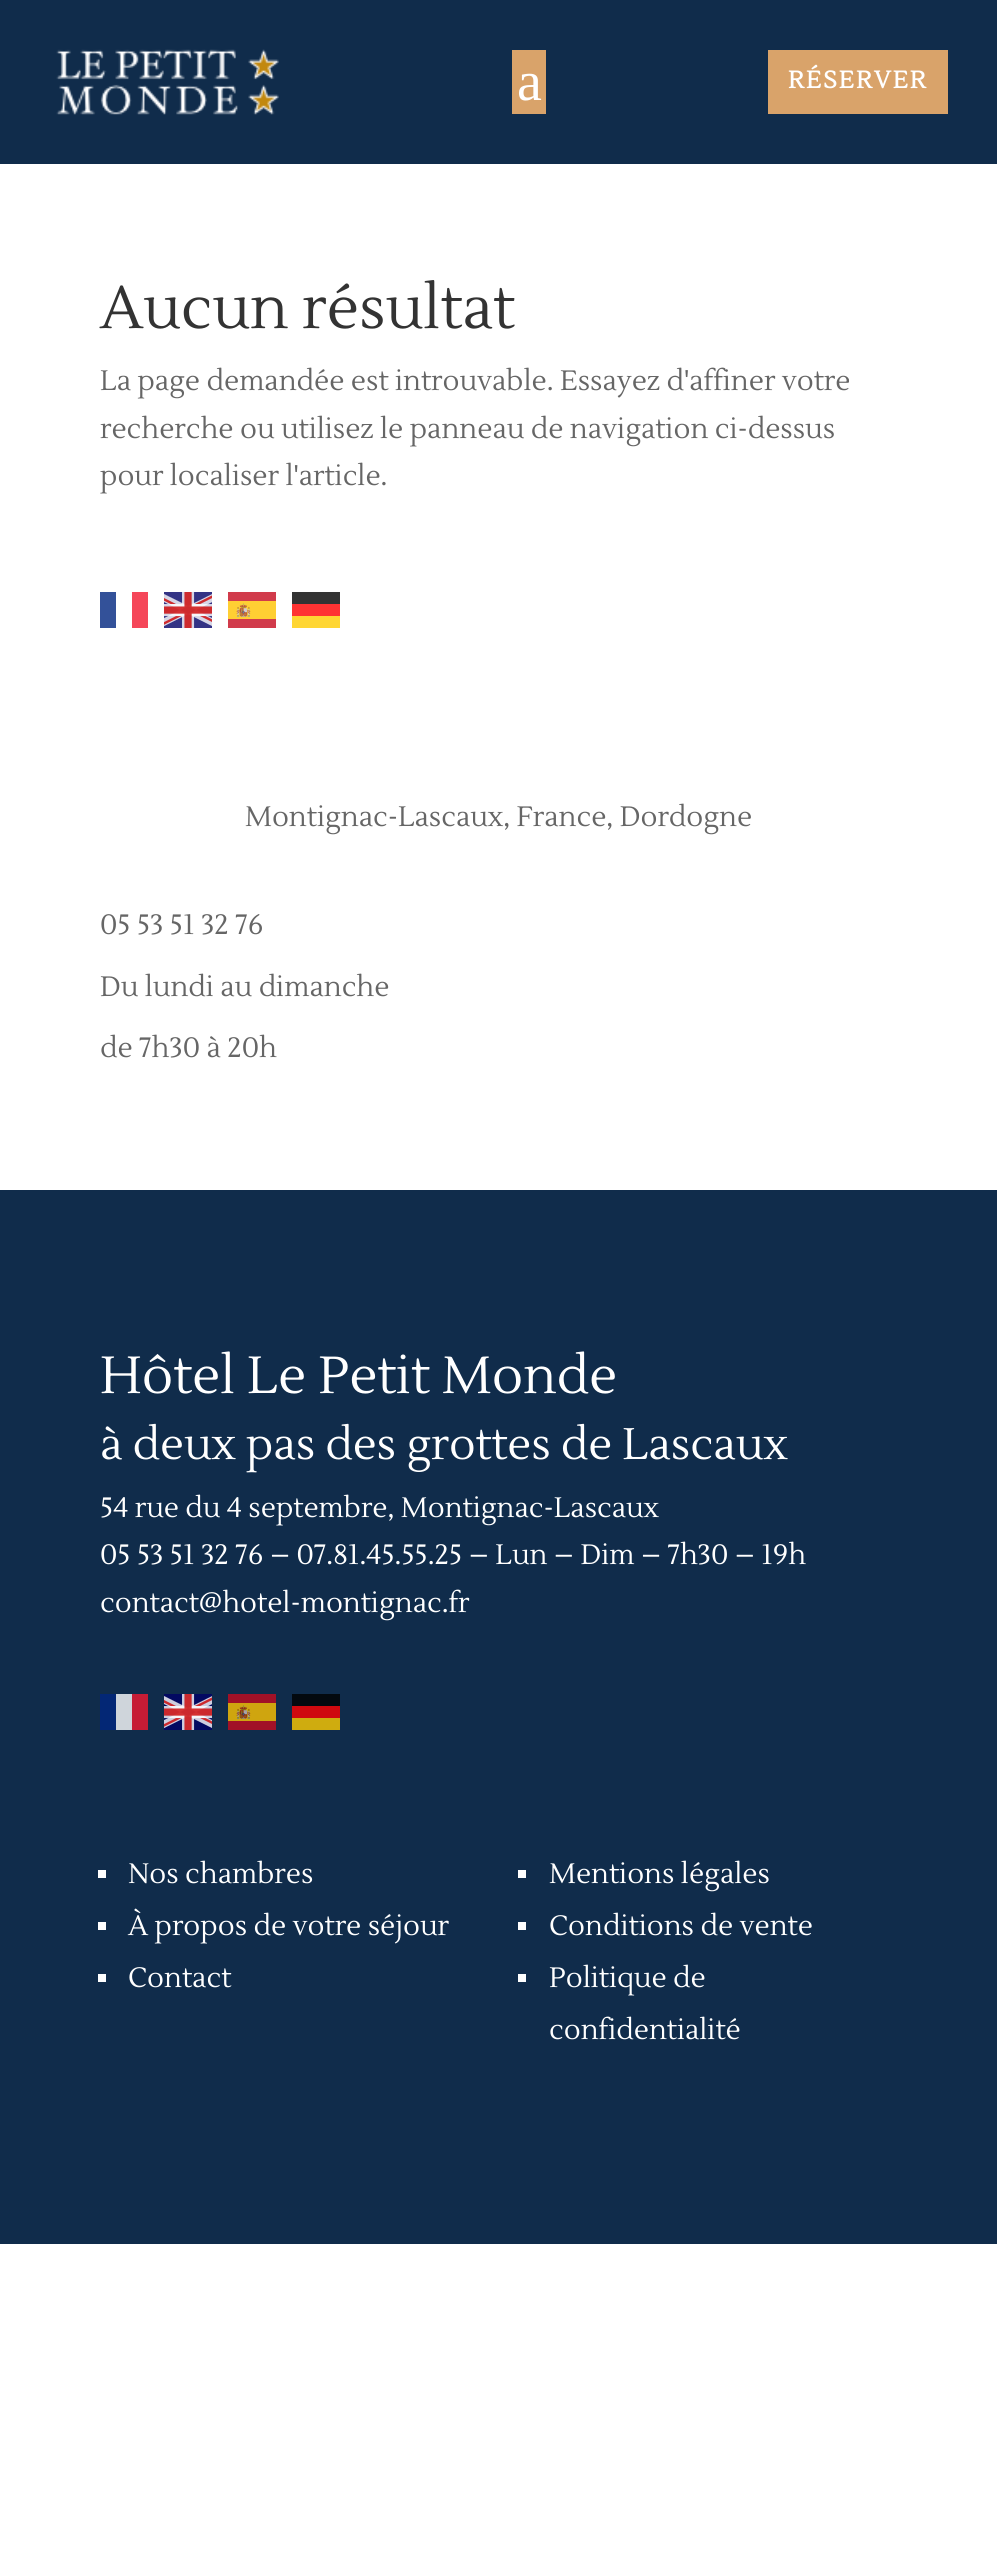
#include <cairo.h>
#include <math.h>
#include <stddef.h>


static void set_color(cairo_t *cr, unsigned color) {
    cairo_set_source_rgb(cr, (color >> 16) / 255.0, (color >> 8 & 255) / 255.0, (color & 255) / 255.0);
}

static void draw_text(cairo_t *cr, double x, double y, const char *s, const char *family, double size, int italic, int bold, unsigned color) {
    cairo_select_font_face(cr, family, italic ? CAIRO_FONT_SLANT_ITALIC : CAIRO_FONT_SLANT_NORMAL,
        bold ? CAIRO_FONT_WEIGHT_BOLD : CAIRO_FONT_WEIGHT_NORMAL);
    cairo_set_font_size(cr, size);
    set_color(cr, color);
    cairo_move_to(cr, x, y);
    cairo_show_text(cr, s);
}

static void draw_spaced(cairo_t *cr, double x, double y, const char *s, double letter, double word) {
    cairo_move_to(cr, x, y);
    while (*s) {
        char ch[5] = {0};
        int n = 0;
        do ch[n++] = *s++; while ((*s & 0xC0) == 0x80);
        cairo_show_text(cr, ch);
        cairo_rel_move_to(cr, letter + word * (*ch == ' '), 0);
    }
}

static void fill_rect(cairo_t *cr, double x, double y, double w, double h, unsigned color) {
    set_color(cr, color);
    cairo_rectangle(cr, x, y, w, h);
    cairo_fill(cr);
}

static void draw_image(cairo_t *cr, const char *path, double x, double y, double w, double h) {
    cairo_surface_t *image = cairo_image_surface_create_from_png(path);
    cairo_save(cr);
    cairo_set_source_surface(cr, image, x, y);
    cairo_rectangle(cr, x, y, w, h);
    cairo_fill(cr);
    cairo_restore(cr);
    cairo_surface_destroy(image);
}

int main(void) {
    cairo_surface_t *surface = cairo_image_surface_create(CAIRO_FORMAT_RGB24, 997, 2570);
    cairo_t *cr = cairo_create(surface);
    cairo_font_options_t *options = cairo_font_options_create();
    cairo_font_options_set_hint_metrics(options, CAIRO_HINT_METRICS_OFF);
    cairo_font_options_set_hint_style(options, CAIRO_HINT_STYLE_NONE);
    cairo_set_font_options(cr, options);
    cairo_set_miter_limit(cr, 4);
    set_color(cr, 0xFFFFFF);
    cairo_paint(cr);
    fill_rect(cr, 0, 0, 997, 164, 0x102C4B);
    draw_image(cr, "assets/img1.png", 56, 49, 223, 66);
    fill_rect(cr, 512, 50, 34, 64, 0xD9A36A);
    draw_text(cr, 517, 100, "a", "Liberation Serif", 56, 0, 0, 0xFFFFFF);
    fill_rect(cr, 768, 50, 180, 64, 0xD9A36A);
    cairo_select_font_face(cr, "Lustria", CAIRO_FONT_SLANT_NORMAL, CAIRO_FONT_WEIGHT_BOLD);
    cairo_set_font_size(cr, 24);
    set_color(cr, 0xFFFFFF);
    draw_spaced(cr, 788, 88, "RÉSERVER", 2, 0);
    draw_text(cr, 100, 328, "Aucun résultat", "Lustria", 60, 0, 0, 0x333333);
    draw_text(cr, 100, 390, "La page demandée est introuvable. Essayez d'affiner votre", "Lustria", 28, 0, 0, 0x666666);
    draw_text(cr, 100, 438, "recherche ou utilisez le panneau de navigation ci-dessus", "Lustria", 28, 0, 0, 0x666666);
    draw_text(cr, 100, 485, "pour localiser l'article.", "Lustria", 28, 0, 0, 0x666666);
    fill_rect(cr, 100, 592, 16, 36, 0x335199);
    fill_rect(cr, 132, 592, 16, 36, 0xF54659);
    draw_image(cr, "assets/img2.png", 164, 592, 48, 36);
    draw_image(cr, "assets/img3.png", 228, 592, 48, 36);
    fill_rect(cr, 292, 592, 48, 12, 0x333333);
    fill_rect(cr, 292, 604, 48, 12, 0xFF3333);
    fill_rect(cr, 292, 616, 48, 12, 0xFFD633);
    draw_text(cr, 245, 826, "Montignac-Lascaux, France, Dordogne", "Lustria", 28, 0, 0, 0x666666);
    draw_text(cr, 100, 934, "05 53 51 32 76", "Lustria", 28, 0, 0, 0x666666);
    draw_text(cr, 100, 996, "Du lundi au dimanche", "Lustria", 28, 0, 0, 0x666666);
    draw_text(cr, 100, 1057, "de 7h30 à 20h", "Lustria", 28, 0, 0, 0x666666);
    fill_rect(cr, 0, 1190, 997, 1054, 0x102C4B);
    draw_text(cr, 100, 1393, "Hôtel Le Petit Monde", "Lustria", 52, 0, 0, 0xFFFFFF);
    draw_text(cr, 100, 1459, "à deux pas des grottes de Lascaux", "Lustria", 44, 0, 0, 0xFFFFFF);
    draw_text(cr, 100, 1517, "54 rue du 4 septembre, Montignac-Lascaux", "Lustria", 28, 0, 0, 0xFFFFFF);
    draw_text(cr, 100, 1564, "05 53 51 32 76 – 07.81.45.55.25 – Lun – Dim – 7h30 – 19h", "Lustria", 28, 0, 0, 0xFFFFFF);
    draw_text(cr, 100, 1612, "contact@hotel-montignac.fr", "Lustria", 28, 0, 0, 0xFFFFFF);
    fill_rect(cr, 100, 1694, 16, 36, 0x032775);
    fill_rect(cr, 116, 1694, 16, 36, 0xCFD5DB);
    fill_rect(cr, 132, 1694, 16, 36, 0xC61C35);
    draw_image(cr, "assets/img4.png", 164, 1694, 48, 36);
    draw_image(cr, "assets/img5.png", 228, 1694, 48, 36);
    fill_rect(cr, 292, 1694, 48, 12, 0x03090F);
    fill_rect(cr, 292, 1706, 48, 12, 0xCF090F);
    fill_rect(cr, 292, 1718, 48, 12, 0xCFAC0F);
    fill_rect(cr, 98, 1870, 8, 8, 0xFFFFFF);
    draw_text(cr, 128, 1883, "Nos chambres", "Lustria", 28, 0, 0, 0xFFFFFF);
    fill_rect(cr, 98, 1922, 8, 8, 0xFFFFFF);
    draw_text(cr, 128, 1935, "À propos de votre séjour", "Lustria", 28, 0, 0, 0xFFFFFF);
    fill_rect(cr, 98, 1974, 8, 8, 0xFFFFFF);
    draw_text(cr, 128, 1987, "Contact", "Lustria", 28, 0, 0, 0xFFFFFF);
    fill_rect(cr, 518, 1870, 8, 8, 0xFFFFFF);
    draw_text(cr, 549, 1883, "Mentions légales", "Lustria", 28, 0, 0, 0xFFFFFF);
    fill_rect(cr, 518, 1922, 8, 8, 0xFFFFFF);
    draw_text(cr, 549, 1935, "Conditions de vente", "Lustria", 28, 0, 0, 0xFFFFFF);
    fill_rect(cr, 518, 1974, 8, 8, 0xFFFFFF);
    draw_text(cr, 549, 1987, "Politique de", "Lustria", 28, 0, 0, 0xFFFFFF);
    draw_text(cr, 549, 2039, "confidentialité", "Lustria", 28, 0, 0, 0xFFFFFF);
    cairo_surface_write_to_png(surface, "output.png");
    cairo_font_options_destroy(options);
    cairo_destroy(cr);
    cairo_surface_destroy(surface);
    return 0;
}
